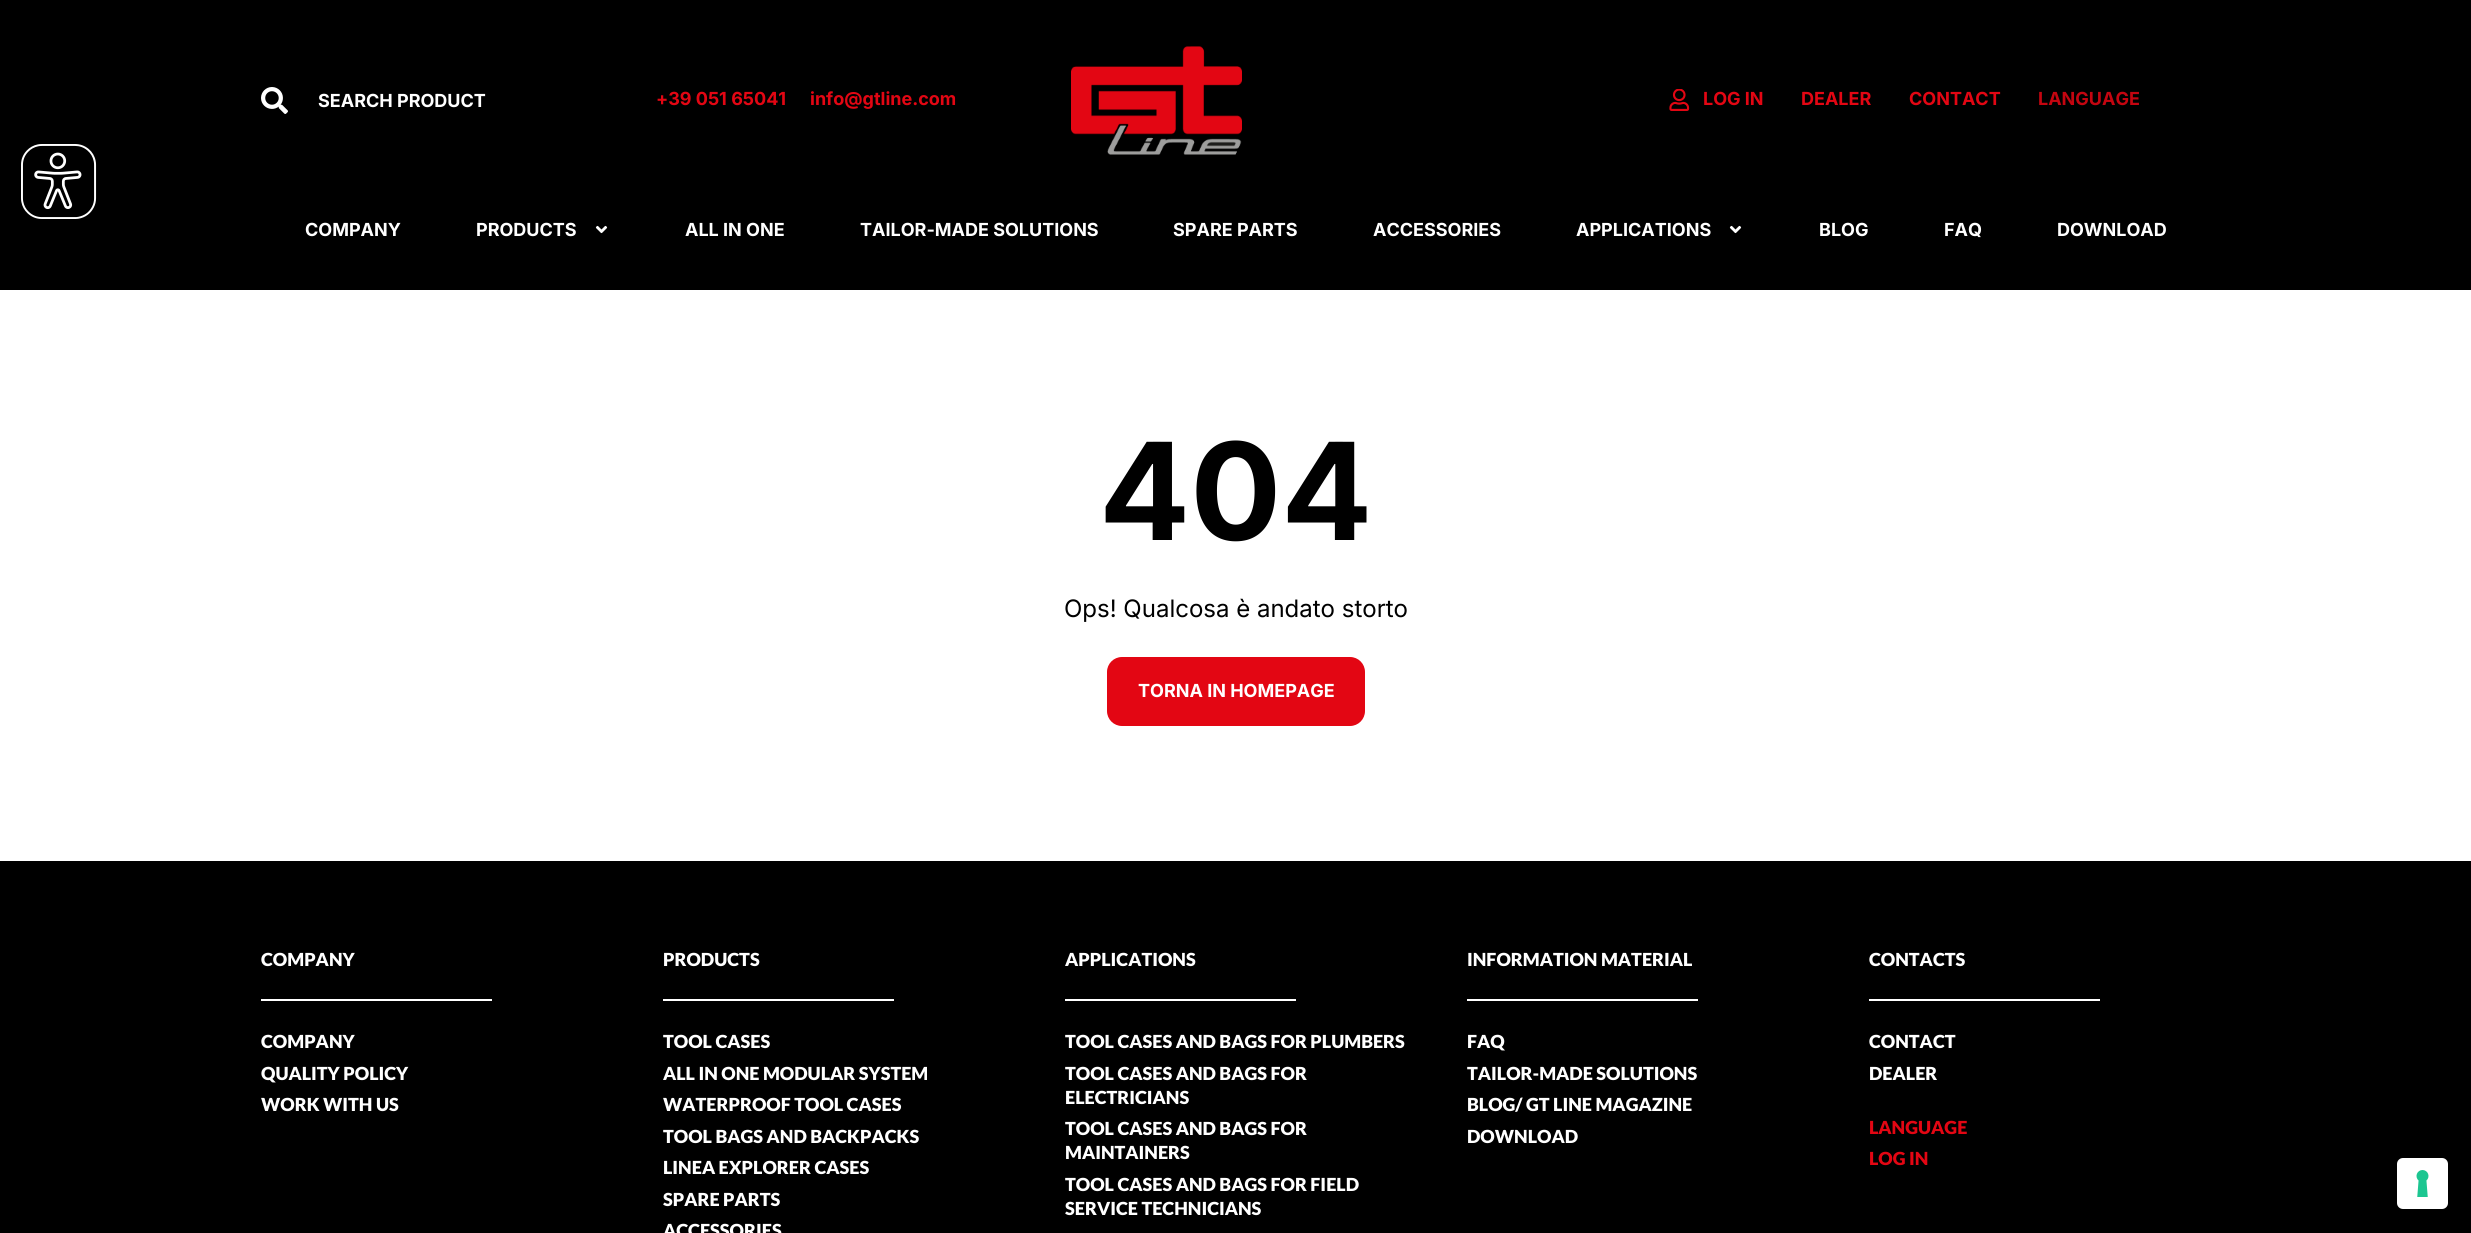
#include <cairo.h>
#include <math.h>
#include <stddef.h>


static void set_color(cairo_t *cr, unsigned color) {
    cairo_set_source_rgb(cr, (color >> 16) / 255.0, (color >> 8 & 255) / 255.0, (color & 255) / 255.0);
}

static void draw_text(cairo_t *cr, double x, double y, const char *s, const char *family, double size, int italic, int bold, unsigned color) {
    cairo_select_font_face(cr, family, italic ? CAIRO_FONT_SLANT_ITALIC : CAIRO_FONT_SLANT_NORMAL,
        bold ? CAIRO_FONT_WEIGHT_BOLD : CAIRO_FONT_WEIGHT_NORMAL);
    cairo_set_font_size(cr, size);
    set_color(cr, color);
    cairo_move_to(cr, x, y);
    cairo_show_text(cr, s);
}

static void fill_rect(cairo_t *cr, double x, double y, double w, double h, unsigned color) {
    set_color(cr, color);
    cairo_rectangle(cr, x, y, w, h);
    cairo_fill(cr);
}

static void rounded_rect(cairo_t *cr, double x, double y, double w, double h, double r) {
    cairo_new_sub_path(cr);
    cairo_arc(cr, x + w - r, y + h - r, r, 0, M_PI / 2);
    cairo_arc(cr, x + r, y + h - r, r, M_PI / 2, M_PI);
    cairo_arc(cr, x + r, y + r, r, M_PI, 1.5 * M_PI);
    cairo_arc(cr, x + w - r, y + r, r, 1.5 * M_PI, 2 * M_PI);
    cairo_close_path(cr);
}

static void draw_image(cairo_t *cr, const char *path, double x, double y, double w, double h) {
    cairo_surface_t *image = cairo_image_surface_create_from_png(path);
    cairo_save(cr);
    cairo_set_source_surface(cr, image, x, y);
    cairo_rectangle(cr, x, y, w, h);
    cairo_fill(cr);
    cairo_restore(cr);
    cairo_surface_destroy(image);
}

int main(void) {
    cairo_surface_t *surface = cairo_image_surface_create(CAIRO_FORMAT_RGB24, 2471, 1233);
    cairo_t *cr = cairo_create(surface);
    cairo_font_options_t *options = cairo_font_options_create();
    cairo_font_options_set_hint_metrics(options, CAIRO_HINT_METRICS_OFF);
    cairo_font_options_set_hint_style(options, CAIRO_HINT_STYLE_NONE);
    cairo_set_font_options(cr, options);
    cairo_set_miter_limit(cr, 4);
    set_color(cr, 0xFFFFFF);
    cairo_paint(cr);
    fill_rect(cr, 0, 0, 2471, 290, 0x000000);
    draw_image(cr, "assets/img1.png", 21, 144, 76, 75);
    draw_image(cr, "assets/img2.png", 261, 87, 27, 27);
    draw_text(cr, 318, 107, "SEARCH PRODUCT", "Inter", 18, 0, 1, 0xFFFFFF);
    draw_text(cr, 656, 105, "+39 051 65041", "Inter", 18, 0, 1, 0xE30613);
    draw_text(cr, 810, 105, "info@gtline.com", "Inter", 18, 0, 1, 0xE30613);
    draw_image(cr, "assets/img3.png", 1071, 46, 171, 109);
    draw_image(cr, "assets/img4.png", 1669, 89, 21, 22);
    draw_text(cr, 1703, 105, "LOG IN", "Inter", 18, 0, 1, 0xE30613);
    draw_text(cr, 1801, 105, "DEALER", "Inter", 18, 0, 1, 0xE30613);
    draw_text(cr, 1909, 105, "CONTACT", "Inter", 18, 0, 1, 0xE30613);
    draw_text(cr, 2038, 105, "LANGUAGE", "Inter", 18, 0, 1, 0xC40510);
    draw_text(cr, 305, 236, "COMPANY", "Inter", 18, 0, 1, 0xFFFFFF);
    draw_text(cr, 476, 236, "PRODUCTS", "Inter", 18, 0, 1, 0xFFFFFF);
    draw_image(cr, "assets/img5.png", 595, 225, 13, 9);
    draw_text(cr, 685, 236, "ALL IN ONE", "Inter", 18, 0, 1, 0xFFFFFF);
    draw_text(cr, 860, 236, "TAILOR-MADE SOLUTIONS", "Inter", 18, 0, 1, 0xFFFFFF);
    draw_text(cr, 1173, 236, "SPARE PARTS", "Inter", 18, 0, 1, 0xFFFFFF);
    draw_text(cr, 1373, 236, "ACCESSORIES", "Inter", 18, 0, 1, 0xFFFFFF);
    draw_text(cr, 1576, 236, "APPLICATIONS", "Inter", 18, 0, 1, 0xFFFFFF);
    draw_image(cr, "assets/img5.png", 1729, 225, 13, 9);
    draw_text(cr, 1819, 236, "BLOG", "Inter", 18, 0, 1, 0xFFFFFF);
    draw_text(cr, 1944, 236, "FAQ", "Inter", 18, 0, 1, 0xFFFFFF);
    draw_text(cr, 2057, 236, "DOWNLOAD", "Inter", 18, 0, 1, 0xFFFFFF);
    draw_text(cr, 1099, 540, "404", "Inter", 135, 0, 1, 0x000000);
    draw_text(cr, 1064, 617, "Ops! Qualcosa è andato storto", "Inter", 24, 0, 0, 0x000000);
    set_color(cr, 0xE30613);
    rounded_rect(cr, 1107, 657, 258, 69, 15);
    cairo_fill(cr);
    draw_text(cr, 1138, 697, "TORNA IN HOMEPAGE", "Inter", 18, 0, 1, 0xFFFFFF);
    fill_rect(cr, 0, 861, 2471, 372, 0x000000);
    draw_text(cr, 261, 966, "COMPANY", "Lato Black", 18, 0, 0, 0xFFFFFF);
    fill_rect(cr, 261, 999, 231, 2, 0xFFFFFF);
    draw_text(cr, 261, 1048, "COMPANY", "Lato Black", 18, 0, 0, 0xFFFFFF);
    draw_text(cr, 261, 1080, "QUALITY POLICY", "Lato Black", 18, 0, 0, 0xFFFFFF);
    draw_text(cr, 261, 1111, "WORK WITH US", "Lato Black", 18, 0, 0, 0xFFFFFF);
    draw_text(cr, 663, 966, "PRODUCTS", "Lato Black", 18, 0, 0, 0xFFFFFF);
    fill_rect(cr, 663, 999, 231, 2, 0xFFFFFF);
    draw_text(cr, 663, 1048, "TOOL CASES", "Lato Black", 18, 0, 0, 0xFFFFFF);
    draw_text(cr, 663, 1080, "ALL IN ONE MODULAR SYSTEM", "Lato Black", 18, 0, 0, 0xFFFFFF);
    draw_text(cr, 663, 1111, "WATERPROOF TOOL CASES", "Lato Black", 18, 0, 0, 0xFFFFFF);
    draw_text(cr, 663, 1143, "TOOL BAGS AND BACKPACKS", "Lato Black", 18, 0, 0, 0xFFFFFF);
    draw_text(cr, 663, 1174, "LINEA EXPLORER CASES", "Lato Black", 18, 0, 0, 0xFFFFFF);
    draw_text(cr, 663, 1206, "SPARE PARTS", "Lato Black", 18, 0, 0, 0xFFFFFF);
    draw_text(cr, 663, 1237, "ACCESSORIES", "Lato Black", 18, 0, 0, 0xFFFFFF);
    draw_text(cr, 1065, 966, "APPLICATIONS", "Lato Black", 18, 0, 0, 0xFFFFFF);
    fill_rect(cr, 1065, 999, 231, 2, 0xFFFFFF);
    draw_text(cr, 1065, 1048, "TOOL CASES AND BAGS FOR PLUMBERS", "Lato Black", 18, 0, 0, 0xFFFFFF);
    draw_text(cr, 1065, 1080, "TOOL CASES AND BAGS FOR", "Lato Black", 18, 0, 0, 0xFFFFFF);
    draw_text(cr, 1065, 1104, "ELECTRICIANS", "Lato Black", 18, 0, 0, 0xFFFFFF);
    draw_text(cr, 1065, 1135, "TOOL CASES AND BAGS FOR", "Lato Black", 18, 0, 0, 0xFFFFFF);
    draw_text(cr, 1065, 1159, "MAINTAINERS", "Lato Black", 18, 0, 0, 0xFFFFFF);
    draw_text(cr, 1065, 1191, "TOOL CASES AND BAGS FOR FIELD", "Lato Black", 18, 0, 0, 0xFFFFFF);
    draw_text(cr, 1065, 1215, "SERVICE TECHNICIANS", "Lato Black", 18, 0, 0, 0xFFFFFF);
    draw_text(cr, 1467, 966, "INFORMATION MATERIAL", "Lato Black", 18, 0, 0, 0xFFFFFF);
    fill_rect(cr, 1467, 999, 231, 2, 0xFFFFFF);
    draw_text(cr, 1467, 1048, "FAQ", "Lato Black", 18, 0, 0, 0xFFFFFF);
    draw_text(cr, 1467, 1080, "TAILOR-MADE SOLUTIONS", "Lato Black", 18, 0, 0, 0xFFFFFF);
    draw_text(cr, 1467, 1111, "BLOG/ GT LINE MAGAZINE", "Lato Black", 18, 0, 0, 0xFFFFFF);
    draw_text(cr, 1467, 1143, "DOWNLOAD", "Lato Black", 18, 0, 0, 0xFFFFFF);
    draw_text(cr, 1869, 966, "CONTACTS", "Lato Black", 18, 0, 0, 0xFFFFFF);
    fill_rect(cr, 1869, 999, 231, 2, 0xFFFFFF);
    draw_text(cr, 1869, 1048, "CONTACT", "Lato Black", 18, 0, 0, 0xFFFFFF);
    draw_text(cr, 1869, 1080, "DEALER", "Lato Black", 18, 0, 0, 0xFFFFFF);
    draw_text(cr, 1869, 1134, "LANGUAGE", "Lato Black", 18, 0, 0, 0xE30613);
    draw_text(cr, 1869, 1165, "LOG IN", "Lato Black", 18, 0, 0, 0xE30613);
    set_color(cr, 0xFFFFFF);
    rounded_rect(cr, 2397, 1158, 51, 51, 6);
    cairo_fill(cr);
    draw_image(cr, "assets/img6.png", 2416, 1170, 13, 27);
    cairo_surface_write_to_png(surface, "output.png");
    cairo_font_options_destroy(options);
    cairo_destroy(cr);
    cairo_surface_destroy(surface);
    return 0;
}
